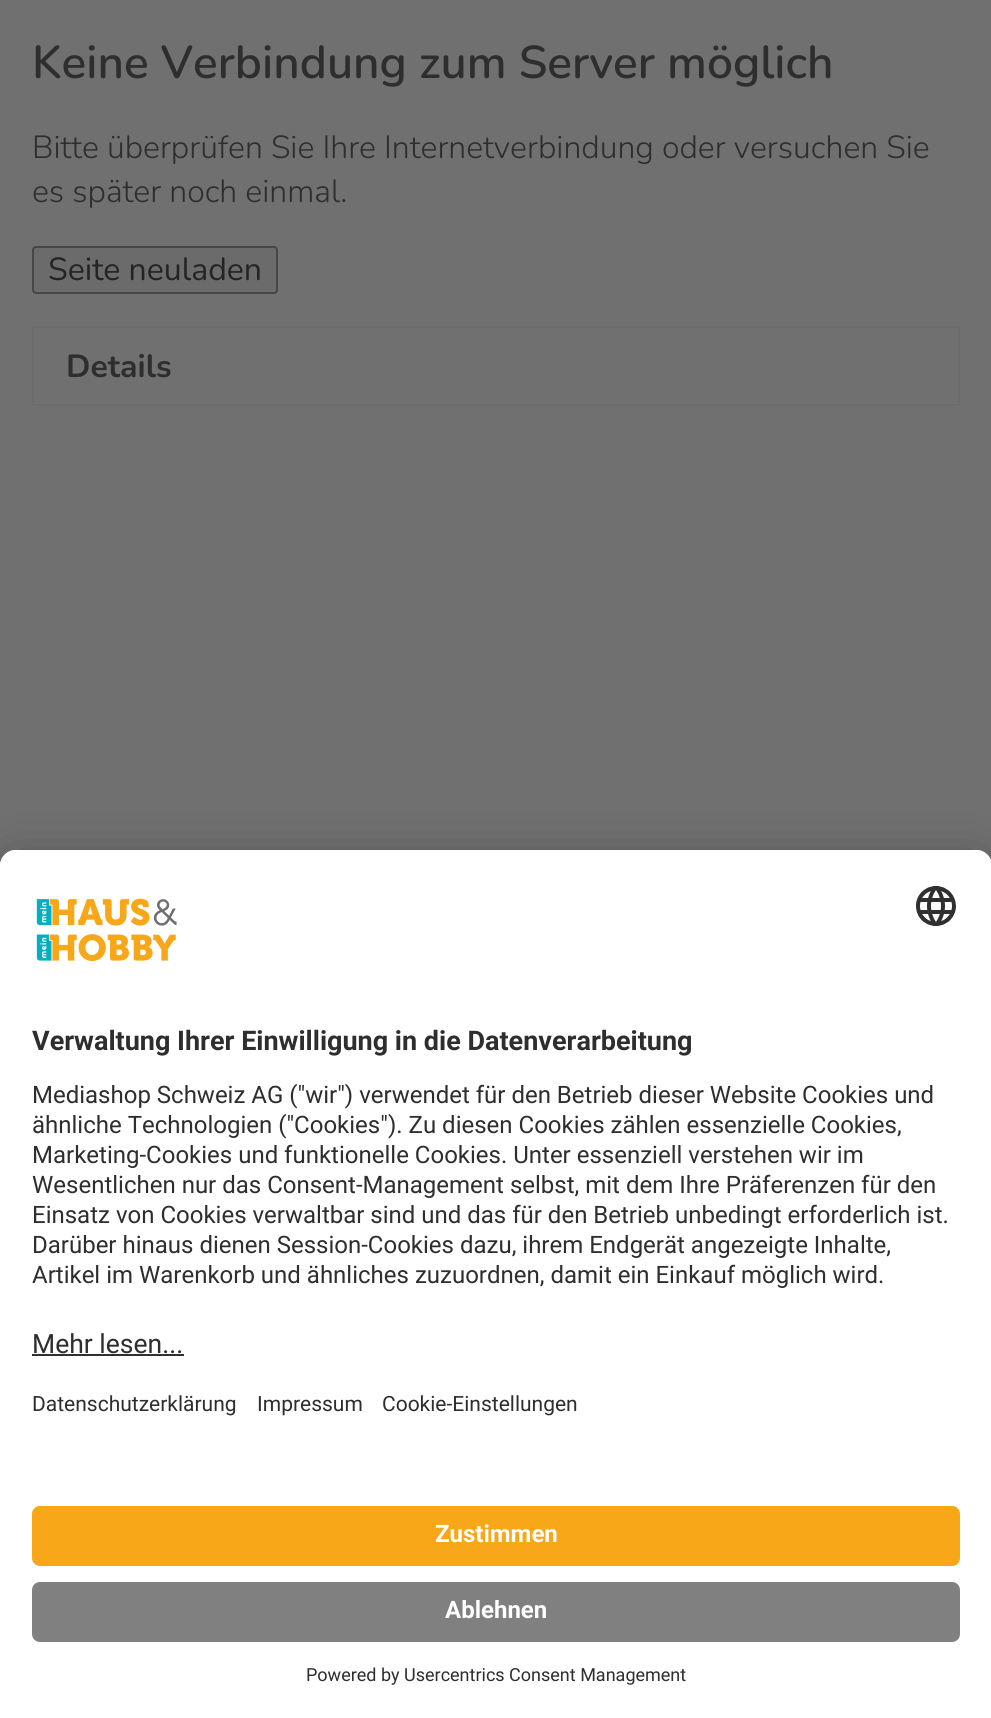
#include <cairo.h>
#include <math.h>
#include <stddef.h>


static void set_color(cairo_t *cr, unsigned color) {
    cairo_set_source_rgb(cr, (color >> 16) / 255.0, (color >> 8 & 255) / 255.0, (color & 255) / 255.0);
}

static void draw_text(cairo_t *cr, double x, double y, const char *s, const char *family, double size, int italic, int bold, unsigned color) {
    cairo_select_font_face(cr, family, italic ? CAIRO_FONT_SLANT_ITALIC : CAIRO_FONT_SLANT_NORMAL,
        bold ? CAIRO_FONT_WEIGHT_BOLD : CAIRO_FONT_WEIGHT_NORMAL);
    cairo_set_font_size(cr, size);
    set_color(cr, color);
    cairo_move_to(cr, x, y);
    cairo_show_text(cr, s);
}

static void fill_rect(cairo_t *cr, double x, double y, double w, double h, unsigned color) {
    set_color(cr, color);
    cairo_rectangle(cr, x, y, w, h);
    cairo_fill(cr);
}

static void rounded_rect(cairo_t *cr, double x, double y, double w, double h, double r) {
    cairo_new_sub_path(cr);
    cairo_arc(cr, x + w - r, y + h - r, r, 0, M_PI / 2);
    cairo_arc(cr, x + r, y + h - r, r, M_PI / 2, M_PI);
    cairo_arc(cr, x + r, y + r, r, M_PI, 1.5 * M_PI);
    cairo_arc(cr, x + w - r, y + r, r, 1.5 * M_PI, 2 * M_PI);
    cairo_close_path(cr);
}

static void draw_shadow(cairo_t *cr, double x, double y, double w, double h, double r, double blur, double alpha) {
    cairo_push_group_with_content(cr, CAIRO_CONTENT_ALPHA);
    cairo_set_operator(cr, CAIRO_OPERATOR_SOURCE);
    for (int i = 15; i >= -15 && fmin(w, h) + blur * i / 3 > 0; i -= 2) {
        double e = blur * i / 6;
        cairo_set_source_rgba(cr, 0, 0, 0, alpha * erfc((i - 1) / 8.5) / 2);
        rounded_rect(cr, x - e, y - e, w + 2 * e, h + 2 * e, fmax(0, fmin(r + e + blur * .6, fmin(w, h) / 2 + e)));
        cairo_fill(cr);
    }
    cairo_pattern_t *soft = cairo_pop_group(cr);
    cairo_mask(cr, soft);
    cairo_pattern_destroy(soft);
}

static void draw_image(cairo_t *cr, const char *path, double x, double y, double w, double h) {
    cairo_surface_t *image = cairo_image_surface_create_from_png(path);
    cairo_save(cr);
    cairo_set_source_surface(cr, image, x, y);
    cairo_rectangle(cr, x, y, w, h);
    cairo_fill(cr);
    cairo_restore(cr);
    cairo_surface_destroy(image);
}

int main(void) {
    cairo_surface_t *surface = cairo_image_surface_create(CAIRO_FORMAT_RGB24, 991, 1718);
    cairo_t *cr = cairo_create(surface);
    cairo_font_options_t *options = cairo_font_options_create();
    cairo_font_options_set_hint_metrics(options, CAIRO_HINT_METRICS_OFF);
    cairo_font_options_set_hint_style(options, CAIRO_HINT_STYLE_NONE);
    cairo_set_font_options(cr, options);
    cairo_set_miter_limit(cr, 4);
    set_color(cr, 0x707070);
    cairo_paint(cr);
    draw_text(cr, 32, 78, "Keine Verbindung zum Server möglich", "Nunito SemiBold", 46, 0, 0, 0x2E2E2E);
    draw_text(cr, 32, 158, "Bitte überprüfen Sie Ihre Internetverbindung oder versuchen Sie", "Nunito Light", 32, 0, 0, 0x2E2E2E);
    draw_text(cr, 32, 202, "es später noch einmal.", "Nunito Light", 32, 0, 0, 0x2E2E2E);
    set_color(cr, 0x6B6B6B);
    rounded_rect(cr, 33, 247, 244, 46, 3);
    cairo_fill_preserve(cr);
    set_color(cr, 0x474747);
    cairo_stroke(cr);
    draw_text(cr, 48, 280, "Seite neuladen", "Nunito", 32, 0, 0, 0x242424);
    cairo_rectangle(cr, 33, 327, 926, 78);
    set_color(cr, 0x6C6C6C);
    cairo_stroke(cr);
    draw_text(cr, 66, 377, "Details", "Nunito", 32, 0, 1, 0x2E2E2E);
    set_color(cr, 0x000000);
    draw_shadow(cr, 0, 890, 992, 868, 16, 28, 0.3);
    draw_shadow(cr, 0, 860, 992, 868, 16, 26, 0.22);
    set_color(cr, 0xFFFFFF);
    cairo_new_path(cr);
    cairo_move_to(cr, 16, 850);
    cairo_line_to(cr, 976, 850);
    cairo_curve_to(cr, 985, 850, 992, 857, 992, 866);
    cairo_line_to(cr, 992, 1718);
    cairo_line_to(cr, 0, 1718);
    cairo_line_to(cr, 0, 866);
    cairo_curve_to(cr, 0, 857, 7, 850, 16, 850);
    cairo_close_path(cr);
    cairo_fill(cr);
    cairo_new_path(cr);
    cairo_move_to(cr, 16, 850);
    cairo_line_to(cr, 976, 850);
    cairo_curve_to(cr, 985, 850, 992, 857, 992, 866);
    cairo_line_to(cr, 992, 1482);
    cairo_line_to(cr, 0, 1482);
    cairo_line_to(cr, 0, 866);
    cairo_curve_to(cr, 0, 857, 7, 850, 16, 850);
    cairo_close_path(cr);
    cairo_fill(cr);
    draw_image(cr, "assets/img1.png", 36, 898, 141, 63);
    draw_image(cr, "assets/img2.png", 916, 886, 40, 40);
    draw_text(cr, 32, 1050, "Verwaltung Ihrer Einwilligung in die Datenverarbeitung", "Roboto", 27, 0, 1, 0x2E2E2E);
    draw_text(cr, 32, 1103, "Mediashop Schweiz AG (\"wir\") verwendet für den Betrieb dieser Website Cookies und", "Roboto", 24, 0, 0, 0x2E2E2E);
    draw_text(cr, 32, 1133, "ähnliche Technologien (\"Cookies\"). Zu diesen Cookies zählen essenzielle Cookies,", "Roboto", 24, 0, 0, 0x2E2E2E);
    draw_text(cr, 32, 1163, "Marketing-Cookies und funktionelle Cookies. Unter essenziell verstehen wir im", "Roboto", 24, 0, 0, 0x2E2E2E);
    draw_text(cr, 32, 1193, "Wesentlichen nur das Consent-Management selbst, mit dem Ihre Präferenzen für den", "Roboto", 24, 0, 0, 0x2E2E2E);
    draw_text(cr, 32, 1223, "Einsatz von Cookies verwaltbar sind und das für den Betrieb unbedingt erforderlich ist.", "Roboto", 24, 0, 0, 0x2E2E2E);
    draw_text(cr, 32, 1253, "Darüber hinaus dienen Session-Cookies dazu, ihrem Endgerät angezeigte Inhalte,", "Roboto", 24, 0, 0, 0x2E2E2E);
    draw_text(cr, 32, 1283, "Artikel im Warenkorb und ähnliches zuzuordnen, damit ein Einkauf möglich wird.", "Roboto", 24, 0, 0, 0x2E2E2E);
    draw_text(cr, 32, 1353, "Mehr lesen...", "Roboto", 26.5, 0, 0, 0x2E2E2E);
    fill_rect(cr, 32, 1354, 152, 2, 0x303030);
    draw_text(cr, 32, 1411, "Datenschutzerklärung", "Roboto", 21, 0, 0, 0x2E2E2E);
    draw_text(cr, 257, 1411, "Impressum", "Roboto", 21, 0, 0, 0x2E2E2E);
    draw_text(cr, 382, 1411, "Cookie-Einstellungen", "Roboto", 21, 0, 0, 0x2E2E2E);
    set_color(cr, 0xF7A717);
    rounded_rect(cr, 32, 1506, 928, 60, 8);
    cairo_fill(cr);
    draw_text(cr, 435, 1542, "Zustimmen", "Roboto", 24, 0, 1, 0xFFFFFF);
    set_color(cr, 0x808080);
    rounded_rect(cr, 32, 1582, 928, 60, 8);
    cairo_fill(cr);
    draw_text(cr, 445, 1618, "Ablehnen", "Roboto", 24, 0, 1, 0xFFFFFF);
    draw_text(cr, 306, 1681, "Powered by Usercentrics Consent Management", "Roboto", 18, 0, 0, 0x2E2E2E);
    cairo_surface_write_to_png(surface, "output.png");
    cairo_font_options_destroy(options);
    cairo_destroy(cr);
    cairo_surface_destroy(surface);
    return 0;
}
